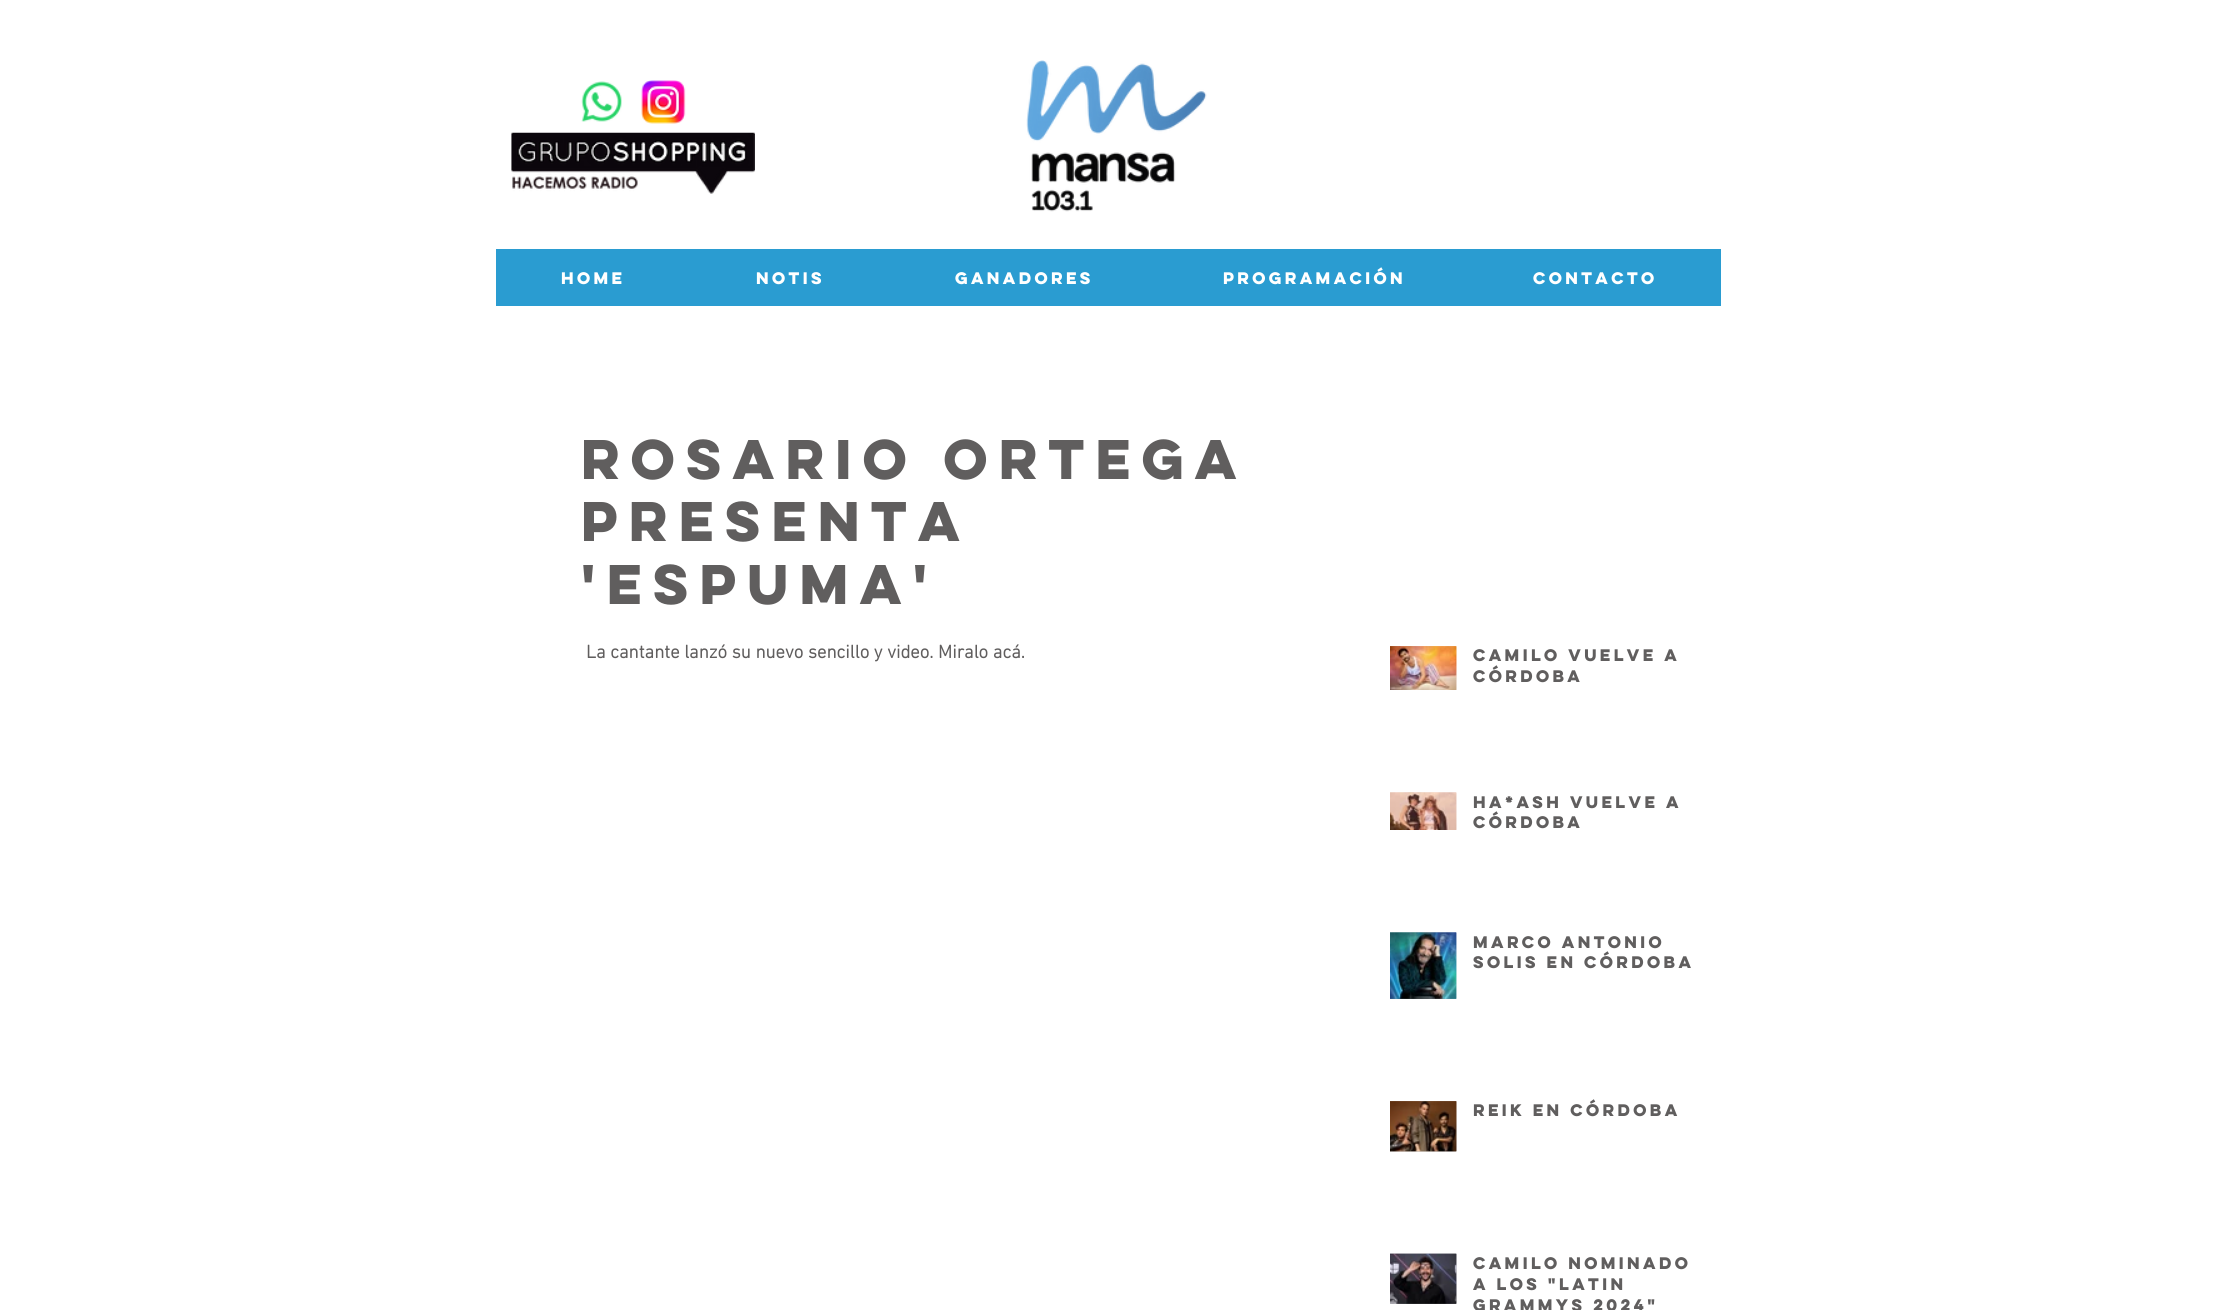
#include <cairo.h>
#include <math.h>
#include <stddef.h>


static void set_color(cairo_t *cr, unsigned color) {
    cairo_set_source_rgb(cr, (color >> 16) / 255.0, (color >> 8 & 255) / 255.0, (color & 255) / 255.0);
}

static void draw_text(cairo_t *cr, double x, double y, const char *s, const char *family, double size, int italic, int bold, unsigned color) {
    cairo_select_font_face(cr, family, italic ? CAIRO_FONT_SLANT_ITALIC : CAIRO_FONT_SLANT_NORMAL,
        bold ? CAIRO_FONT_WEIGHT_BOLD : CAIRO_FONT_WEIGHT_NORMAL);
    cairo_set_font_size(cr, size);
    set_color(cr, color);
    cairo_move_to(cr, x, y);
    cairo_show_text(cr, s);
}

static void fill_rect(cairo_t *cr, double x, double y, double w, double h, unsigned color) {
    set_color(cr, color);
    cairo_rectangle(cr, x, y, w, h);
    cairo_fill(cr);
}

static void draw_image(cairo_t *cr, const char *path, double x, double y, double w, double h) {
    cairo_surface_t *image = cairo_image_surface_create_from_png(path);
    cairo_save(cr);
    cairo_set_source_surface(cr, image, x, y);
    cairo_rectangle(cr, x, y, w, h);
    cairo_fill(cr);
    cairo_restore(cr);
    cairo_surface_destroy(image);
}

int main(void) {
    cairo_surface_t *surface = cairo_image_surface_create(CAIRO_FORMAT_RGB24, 2217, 1310);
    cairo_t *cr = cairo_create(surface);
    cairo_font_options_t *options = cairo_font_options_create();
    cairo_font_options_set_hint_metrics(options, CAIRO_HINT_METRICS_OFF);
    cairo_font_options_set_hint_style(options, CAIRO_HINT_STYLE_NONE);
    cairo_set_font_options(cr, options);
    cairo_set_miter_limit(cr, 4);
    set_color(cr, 0xFFFFFF);
    cairo_paint(cr);
    draw_image(cr, "assets/img1.png", 581, 81, 41, 41);
    draw_image(cr, "assets/img2.png", 641, 80, 45, 44);
    draw_image(cr, "assets/img3.png", 1026, 60, 181, 152);
    draw_image(cr, "assets/img4.png", 511, 132, 244, 62);
    fill_rect(cr, 496, 249, 1225, 57, 0x2A9CD1);
    draw_text(cr, 561, 284, "HOME", "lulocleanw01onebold", 15, 0, 1, 0xFFFFFF);
    draw_text(cr, 756, 284, "NOTIS", "lulocleanw01onebold", 15, 0, 1, 0xFFFFFF);
    draw_text(cr, 955, 284, "GANADORES", "lulocleanw01onebold", 15, 0, 1, 0xFFFFFF);
    draw_text(cr, 1223, 284, "PROGRAMACIÓN", "lulocleanw01onebold", 15, 0, 1, 0xFFFFFF);
    draw_text(cr, 1533, 284, "CONTACTO", "lulocleanw01onebold", 15, 0, 1, 0xFFFFFF);
    draw_text(cr, 581, 479, "Rosario Ortega", "lulocleanw01onebold", 50, 0, 1, 0x605E5E);
    draw_text(cr, 581, 541, "presenta", "lulocleanw01onebold", 50, 0, 1, 0x605E5E);
    draw_text(cr, 581, 604, "'Espuma'", "lulocleanw01onebold", 50, 0, 1, 0x605E5E);
    draw_text(cr, 586, 658, "La cantante lanzó su nuevo sencillo y video. Miralo acá.", "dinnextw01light", 18.75, 0, 1, 0x605E5E);
    draw_image(cr, "assets/img5.png", 1390, 646, 67, 44);
    draw_image(cr, "assets/img6.png", 1390, 646, 67, 44);
    draw_text(cr, 1473, 661, "CAMILO VUELVE A", "lulocleanw01onebold", 15, 0, 1, 0x605E5E);
    draw_text(cr, 1473, 682, "CÓRDOBA", "lulocleanw01onebold", 15, 0, 1, 0x605E5E);
    draw_image(cr, "assets/img7.png", 1390, 792, 67, 38);
    draw_image(cr, "assets/img8.png", 1390, 792, 67, 38);
    draw_text(cr, 1473, 808, "HA*ASH VUELVE A", "lulocleanw01onebold", 15, 0, 1, 0x605E5E);
    draw_text(cr, 1473, 828, "CÓRDOBA", "lulocleanw01onebold", 15, 0, 1, 0x605E5E);
    draw_image(cr, "assets/img9.png", 1390, 932, 67, 67);
    draw_image(cr, "assets/img10.png", 1390, 932, 67, 67);
    draw_text(cr, 1473, 948, "MARCO ANTONIO", "lulocleanw01onebold", 15, 0, 1, 0x605E5E);
    draw_text(cr, 1473, 968, "SOLIS EN CÓRDOBA", "lulocleanw01onebold", 15, 0, 1, 0x605E5E);
    draw_image(cr, "assets/img11.png", 1390, 1101, 67, 51);
    draw_image(cr, "assets/img12.png", 1390, 1101, 67, 51);
    draw_text(cr, 1473, 1116, "REIK EN CÓRDOBA", "lulocleanw01onebold", 15, 0, 1, 0x605E5E);
    draw_image(cr, "assets/img13.png", 1390, 1253, 67, 51);
    draw_image(cr, "assets/img14.png", 1390, 1253, 67, 51);
    draw_text(cr, 1473, 1269, "camilo nominado", "lulocleanw01onebold", 15, 0, 1, 0x605E5E);
    draw_text(cr, 1473, 1290, "a los \"Latin", "lulocleanw01onebold", 15, 0, 1, 0x605E5E);
    draw_text(cr, 1473, 1311, "grammys 2024\"", "lulocleanw01onebold", 15, 0, 1, 0x605E5E);
    cairo_surface_write_to_png(surface, "output.png");
    cairo_font_options_destroy(options);
    cairo_destroy(cr);
    cairo_surface_destroy(surface);
    return 0;
}
